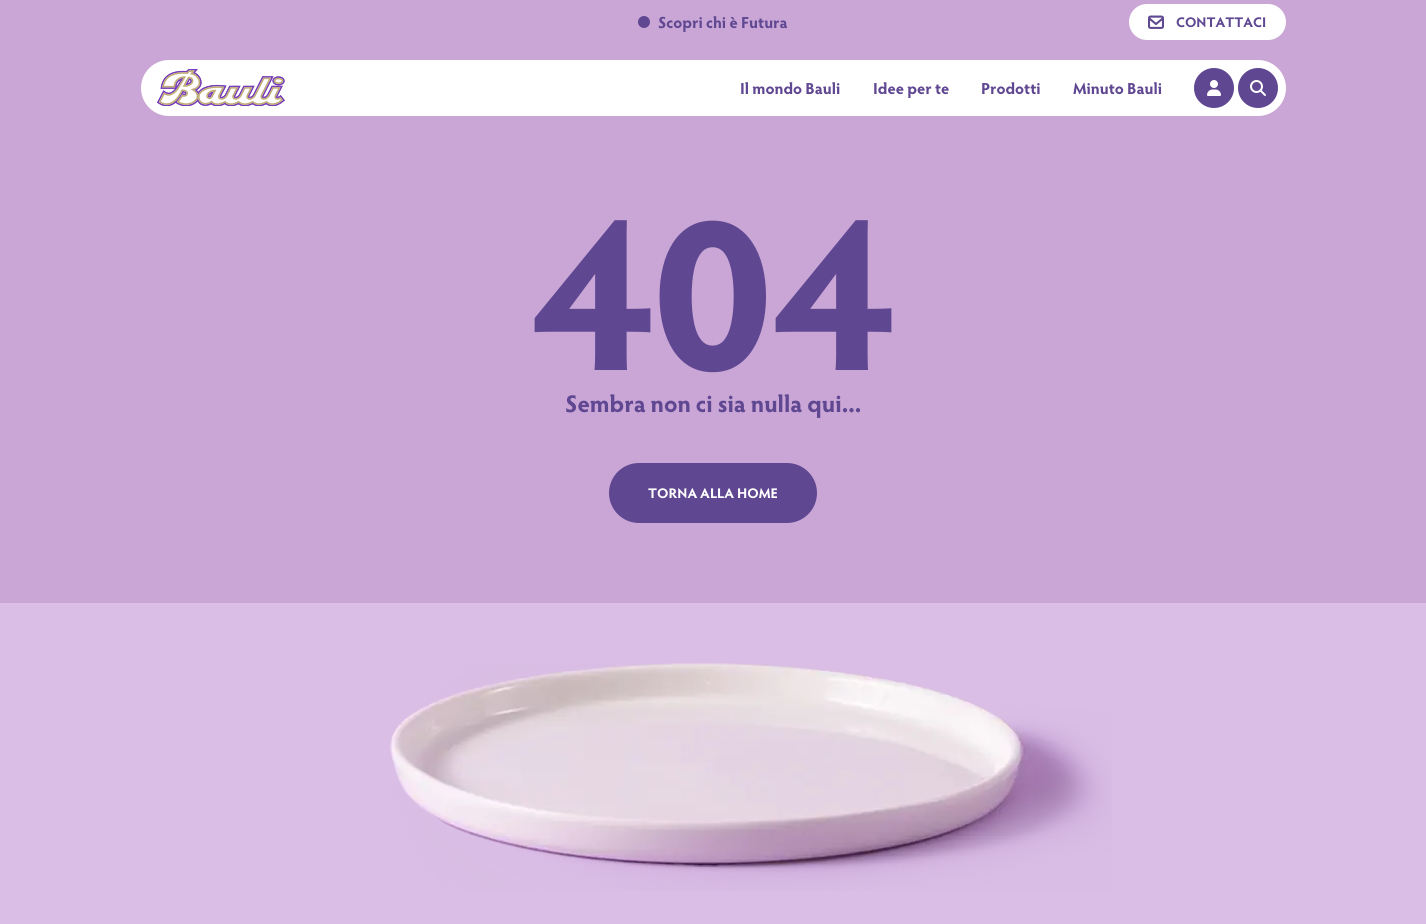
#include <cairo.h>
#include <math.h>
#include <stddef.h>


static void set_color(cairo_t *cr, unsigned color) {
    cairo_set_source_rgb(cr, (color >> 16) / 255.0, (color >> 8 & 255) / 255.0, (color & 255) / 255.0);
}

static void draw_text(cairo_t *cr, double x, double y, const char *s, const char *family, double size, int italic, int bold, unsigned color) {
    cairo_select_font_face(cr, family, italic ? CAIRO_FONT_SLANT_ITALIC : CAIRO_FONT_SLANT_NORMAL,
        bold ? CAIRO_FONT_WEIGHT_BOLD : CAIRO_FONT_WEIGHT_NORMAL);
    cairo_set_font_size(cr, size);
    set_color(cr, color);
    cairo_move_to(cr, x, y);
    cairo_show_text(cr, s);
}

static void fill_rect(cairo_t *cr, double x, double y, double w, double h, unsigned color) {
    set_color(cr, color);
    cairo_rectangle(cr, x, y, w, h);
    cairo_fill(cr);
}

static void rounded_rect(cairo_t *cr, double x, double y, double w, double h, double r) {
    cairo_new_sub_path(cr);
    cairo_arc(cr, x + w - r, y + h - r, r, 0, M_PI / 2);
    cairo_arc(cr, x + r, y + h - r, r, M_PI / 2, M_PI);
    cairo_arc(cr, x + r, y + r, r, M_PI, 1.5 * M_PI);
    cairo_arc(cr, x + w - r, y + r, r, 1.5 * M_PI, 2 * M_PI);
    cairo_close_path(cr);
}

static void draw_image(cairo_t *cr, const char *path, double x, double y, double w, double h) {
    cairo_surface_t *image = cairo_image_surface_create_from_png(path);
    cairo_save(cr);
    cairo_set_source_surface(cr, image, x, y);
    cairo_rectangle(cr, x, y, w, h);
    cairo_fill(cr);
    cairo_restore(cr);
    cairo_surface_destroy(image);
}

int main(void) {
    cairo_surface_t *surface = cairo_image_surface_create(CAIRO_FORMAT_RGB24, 1426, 924);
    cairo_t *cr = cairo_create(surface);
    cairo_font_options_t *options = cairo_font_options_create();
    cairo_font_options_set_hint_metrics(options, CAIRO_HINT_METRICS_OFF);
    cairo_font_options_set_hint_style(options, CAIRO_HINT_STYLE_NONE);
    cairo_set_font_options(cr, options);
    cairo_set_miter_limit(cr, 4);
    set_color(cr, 0xDABEE5);
    cairo_paint(cr);
    fill_rect(cr, 0, 0, 1426, 603, 0xC9A6D6);
    set_color(cr, 0x5F4791);
    cairo_arc(cr, 644, 22, 6, 0, 2 * M_PI);
    cairo_fill(cr);
    draw_text(cr, 658, 28, "Scopri chi è Futura", "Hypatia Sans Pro", 16, 0, 1, 0x5F4791);
    set_color(cr, 0xFFFFFF);
    rounded_rect(cr, 1130.5, 5.5, 154, 33, 16.5);
    cairo_fill_preserve(cr);
    cairo_set_line_width(cr, 3);
    cairo_stroke(cr);
    draw_image(cr, "assets/img1.png", 1148, 15, 16, 14);
    draw_text(cr, 1176, 27, "CONTATTACI", "Hypatia Sans Pro", 14, 0, 1, 0x5F4791);
    set_color(cr, 0xFFFFFF);
    rounded_rect(cr, 141, 60, 1145, 56, 28);
    cairo_fill(cr);
    draw_image(cr, "assets/img2.png", 157, 69, 128, 37);
    draw_text(cr, 740, 94, "Il mondo Bauli", "Hypatia Sans Pro", 16, 0, 1, 0x5F4791);
    draw_text(cr, 873, 94, "Idee per te", "Hypatia Sans Pro", 16, 0, 1, 0x5F4791);
    draw_text(cr, 981, 94, "Prodotti", "Hypatia Sans Pro", 16, 0, 1, 0x5F4791);
    draw_text(cr, 1073, 94, "Minuto Bauli", "Hypatia Sans Pro", 16, 0, 1, 0x5F4791);
    cairo_new_path(cr);
    cairo_arc(cr, 1214, 88, 18.5, 0, 2 * M_PI);
    cairo_fill_preserve(cr);
    cairo_stroke(cr);
    draw_image(cr, "assets/img3.png", 1207, 80, 14, 16);
    cairo_arc(cr, 1258, 88, 18.5, 0, 2 * M_PI);
    cairo_fill_preserve(cr);
    cairo_stroke(cr);
    draw_image(cr, "assets/img4.png", 1250, 80, 16, 16);
    draw_text(cr, 532, 370, "404", "Hypatia Sans Pro", 220, 0, 1, 0x5F4791);
    draw_text(cr, 565, 412, "Sembra non ci sia nulla qui...", "Hypatia Sans Pro", 24, 0, 1, 0x5F4791);
    rounded_rect(cr, 610.5, 464.5, 205, 57, 28.5);
    cairo_fill_preserve(cr);
    cairo_stroke(cr);
    draw_text(cr, 648, 498, "TORNA ALLA HOME", "Hypatia Sans Pro", 14, 0, 1, 0xFFFFFF);
    draw_image(cr, "assets/img5.png", 390, 663, 722, 228);
    cairo_surface_write_to_png(surface, "output.png");
    cairo_font_options_destroy(options);
    cairo_destroy(cr);
    cairo_surface_destroy(surface);
    return 0;
}
